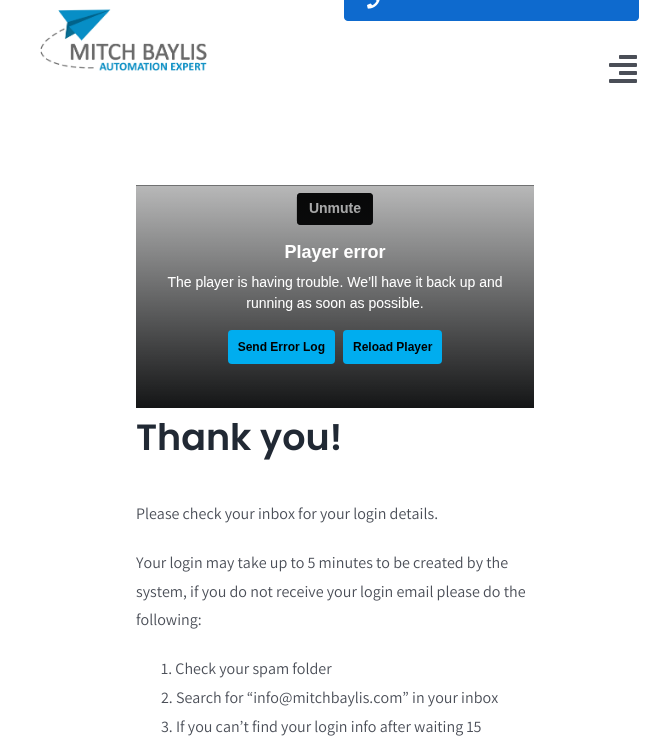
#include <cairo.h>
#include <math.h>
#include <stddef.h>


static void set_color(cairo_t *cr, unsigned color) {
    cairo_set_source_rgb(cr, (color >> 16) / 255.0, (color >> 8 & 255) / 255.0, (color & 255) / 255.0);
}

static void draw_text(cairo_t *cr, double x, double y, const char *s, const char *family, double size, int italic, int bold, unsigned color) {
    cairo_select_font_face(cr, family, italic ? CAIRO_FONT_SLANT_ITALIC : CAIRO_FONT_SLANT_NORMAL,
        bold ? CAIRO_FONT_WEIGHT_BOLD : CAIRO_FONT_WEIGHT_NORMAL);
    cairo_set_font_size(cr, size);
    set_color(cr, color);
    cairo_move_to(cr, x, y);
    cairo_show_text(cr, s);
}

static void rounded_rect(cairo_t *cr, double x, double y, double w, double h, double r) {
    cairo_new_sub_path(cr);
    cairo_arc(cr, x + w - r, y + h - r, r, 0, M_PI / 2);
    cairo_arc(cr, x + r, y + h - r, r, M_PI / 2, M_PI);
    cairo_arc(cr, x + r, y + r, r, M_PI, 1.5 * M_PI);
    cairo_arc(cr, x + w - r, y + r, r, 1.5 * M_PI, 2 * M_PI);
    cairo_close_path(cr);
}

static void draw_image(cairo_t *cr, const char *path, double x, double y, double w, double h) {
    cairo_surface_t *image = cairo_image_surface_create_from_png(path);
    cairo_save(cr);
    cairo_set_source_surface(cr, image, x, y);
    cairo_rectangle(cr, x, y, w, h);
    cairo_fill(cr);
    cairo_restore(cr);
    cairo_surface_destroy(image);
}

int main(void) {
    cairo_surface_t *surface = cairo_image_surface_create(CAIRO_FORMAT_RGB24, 669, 736);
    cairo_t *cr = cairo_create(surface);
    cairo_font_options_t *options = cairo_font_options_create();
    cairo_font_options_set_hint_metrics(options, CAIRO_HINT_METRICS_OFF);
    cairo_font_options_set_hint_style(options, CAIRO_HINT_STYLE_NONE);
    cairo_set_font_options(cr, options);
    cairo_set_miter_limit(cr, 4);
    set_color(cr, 0xFFFFFF);
    cairo_paint(cr);
    draw_image(cr, "assets/img1.png", 40, 9, 167, 62);
    set_color(cr, 0x0E6ACE);
    rounded_rect(cr, 344, -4, 295, 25, 4);
    cairo_fill(cr);
    draw_image(cr, "assets/img2.png", 367, 0, 13, 9);
    draw_image(cr, "assets/img3.png", 609, 55, 28, 28);
    draw_image(cr, "assets/img4.png", 136, 185, 398, 223);
    draw_text(cr, 136, 450, "Thank you!", "Poppins SemiBold", 36.5, 0, 0, 0x212934);
    draw_text(cr, 136, 519, "Please check your inbox for your login details.", "Assistant", 16, 0, 0, 0x4A4E57);
    draw_text(cr, 136, 568, "Your login may take up to 5 minutes to be created by the", "Assistant", 16, 0, 0, 0x4A4E57);
    draw_text(cr, 136, 597, "system, if you do not receive your login email please do the", "Assistant", 16, 0, 0, 0x4A4E57);
    draw_text(cr, 136, 625, "following:", "Assistant", 16, 0, 0, 0x4A4E57);
    draw_text(cr, 161, 674, "1. Check your spam folder", "Assistant", 16, 0, 0, 0x4A4E57);
    draw_text(cr, 161, 703, "2. Search for “info@mitchbaylis.com” in your inbox", "Assistant", 16, 0, 0, 0x4A4E57);
    draw_text(cr, 161, 732, "3. If you can’t find your login info after waiting 15", "Assistant", 16, 0, 0, 0x4A4E57);
    cairo_surface_write_to_png(surface, "output.png");
    cairo_font_options_destroy(options);
    cairo_destroy(cr);
    cairo_surface_destroy(surface);
    return 0;
}
